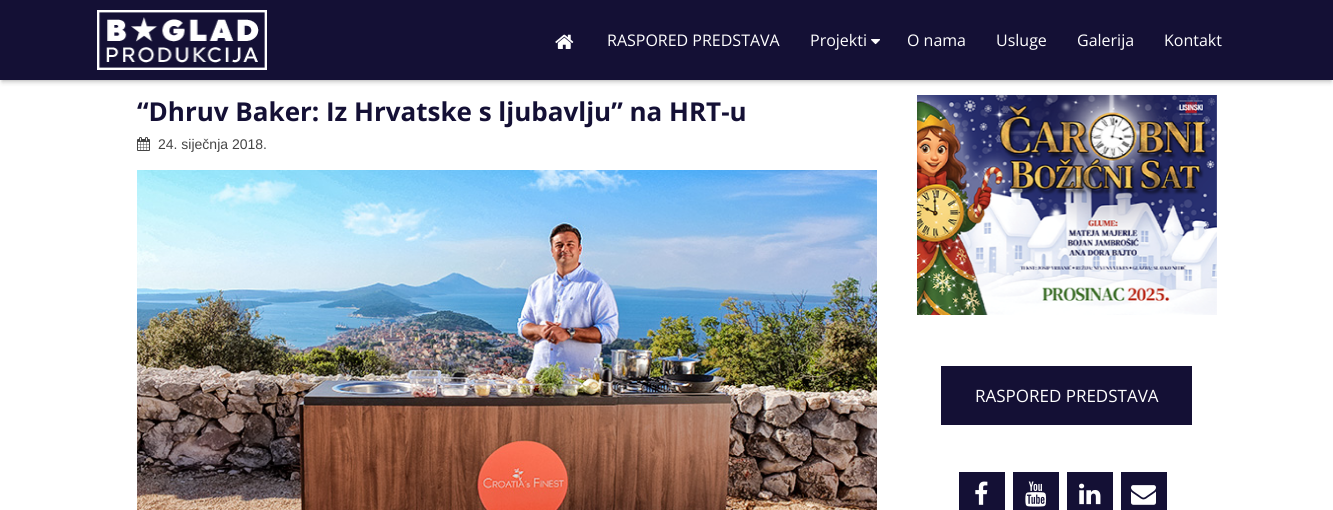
#include <cairo.h>
#include <math.h>
#include <stddef.h>


static void set_color(cairo_t *cr, unsigned color) {
    cairo_set_source_rgb(cr, (color >> 16) / 255.0, (color >> 8 & 255) / 255.0, (color & 255) / 255.0);
}

static void draw_text(cairo_t *cr, double x, double y, const char *s, const char *family, double size, int italic, int bold, unsigned color) {
    cairo_select_font_face(cr, family, italic ? CAIRO_FONT_SLANT_ITALIC : CAIRO_FONT_SLANT_NORMAL,
        bold ? CAIRO_FONT_WEIGHT_BOLD : CAIRO_FONT_WEIGHT_NORMAL);
    cairo_set_font_size(cr, size);
    set_color(cr, color);
    cairo_move_to(cr, x, y);
    cairo_show_text(cr, s);
}

static void fill_rect(cairo_t *cr, double x, double y, double w, double h, unsigned color) {
    set_color(cr, color);
    cairo_rectangle(cr, x, y, w, h);
    cairo_fill(cr);
}

static void rounded_rect(cairo_t *cr, double x, double y, double w, double h, double r) {
    cairo_new_sub_path(cr);
    cairo_arc(cr, x + w - r, y + h - r, r, 0, M_PI / 2);
    cairo_arc(cr, x + r, y + h - r, r, M_PI / 2, M_PI);
    cairo_arc(cr, x + r, y + r, r, M_PI, 1.5 * M_PI);
    cairo_arc(cr, x + w - r, y + r, r, 1.5 * M_PI, 2 * M_PI);
    cairo_close_path(cr);
}

static void draw_shadow(cairo_t *cr, double x, double y, double w, double h, double r, double blur, double alpha) {
    cairo_push_group_with_content(cr, CAIRO_CONTENT_ALPHA);
    cairo_set_operator(cr, CAIRO_OPERATOR_SOURCE);
    for (int i = 15; i >= -15 && fmin(w, h) + blur * i / 3 > 0; i -= 2) {
        double e = blur * i / 6;
        cairo_set_source_rgba(cr, 0, 0, 0, alpha * erfc((i - 1) / 8.5) / 2);
        rounded_rect(cr, x - e, y - e, w + 2 * e, h + 2 * e, fmax(0, fmin(r + e + blur * .6, fmin(w, h) / 2 + e)));
        cairo_fill(cr);
    }
    cairo_pattern_t *soft = cairo_pop_group(cr);
    cairo_mask(cr, soft);
    cairo_pattern_destroy(soft);
}

static void draw_image(cairo_t *cr, const char *path, double x, double y, double w, double h) {
    cairo_surface_t *image = cairo_image_surface_create_from_png(path);
    cairo_save(cr);
    cairo_set_source_surface(cr, image, x, y);
    cairo_rectangle(cr, x, y, w, h);
    cairo_fill(cr);
    cairo_restore(cr);
    cairo_surface_destroy(image);
}

int main(void) {
    cairo_surface_t *surface = cairo_image_surface_create(CAIRO_FORMAT_RGB24, 1333, 510);
    cairo_t *cr = cairo_create(surface);
    cairo_font_options_t *options = cairo_font_options_create();
    cairo_font_options_set_hint_metrics(options, CAIRO_HINT_METRICS_OFF);
    cairo_font_options_set_hint_style(options, CAIRO_HINT_STYLE_NONE);
    cairo_set_font_options(cr, options);
    cairo_set_miter_limit(cr, 4);
    set_color(cr, 0xFFFFFF);
    cairo_paint(cr);
    set_color(cr, 0x000000);
    draw_shadow(cr, 1, 3, 1331, 78, 0, 0.5, 0.05);
    draw_shadow(cr, 2, 6, 1329, 76, 0, 2.5, 0.22);
    fill_rect(cr, 0, 0, 1333, 80, 0x141035);
    draw_image(cr, "assets/img1.png", 97, 10, 170, 60);
    draw_image(cr, "assets/img2.png", 555, 34, 19, 15);
    draw_text(cr, 607, 46, "RASPORED PREDSTAVA", "Open Sans", 16, 0, 0, 0xFFFFFF);
    draw_text(cr, 810, 46, "Projekti", "Open Sans", 16, 0, 0, 0xFFFFFF);
    draw_image(cr, "assets/img3.png", 871, 39, 9, 6);
    draw_text(cr, 907, 46, "O nama", "Open Sans", 16, 0, 0, 0xFFFFFF);
    draw_text(cr, 996, 46, "Usluge", "Open Sans", 16, 0, 0, 0xFFFFFF);
    draw_text(cr, 1077, 46, "Galerija", "Open Sans", 16, 0, 0, 0xFFFFFF);
    draw_text(cr, 1164, 46, "Kontakt", "Open Sans", 16, 0, 0, 0xFFFFFF);
    draw_text(cr, 137, 121, "“Dhruv Baker: Iz Hrvatske s ljubavlju” na HRT-u", "Open Sans", 26, 0, 1, 0x141035);
    draw_image(cr, "assets/img4.png", 137, 137, 13, 14);
    draw_text(cr, 158, 149, "24. siječnja 2018.", "Liberation Sans", 14, 0, 0, 0x454545);
    draw_image(cr, "assets/img5.png", 137, 170, 740, 340);
    draw_image(cr, "assets/img6.png", 917, 95, 300, 220);
    fill_rect(cr, 941, 366, 251, 59, 0x141035);
    draw_text(cr, 975, 402, "RASPORED PREDSTAVA", "Open Sans", 17, 0, 0, 0xFFFFFF);
    fill_rect(cr, 959, 472, 46, 38, 0x141035);
    draw_image(cr, "assets/img7.png", 975, 481, 13, 24);
    fill_rect(cr, 1013, 472, 46, 38, 0x141035);
    draw_image(cr, "assets/img8.png", 1025, 481, 22, 26);
    fill_rect(cr, 1067, 472, 46, 38, 0x141035);
    draw_image(cr, "assets/img9.png", 1079, 483, 22, 22);
    fill_rect(cr, 1121, 472, 46, 38, 0x141035);
    draw_image(cr, "assets/img10.png", 1131, 485, 25, 20);
    cairo_surface_write_to_png(surface, "output.png");
    cairo_font_options_destroy(options);
    cairo_destroy(cr);
    cairo_surface_destroy(surface);
    return 0;
}
